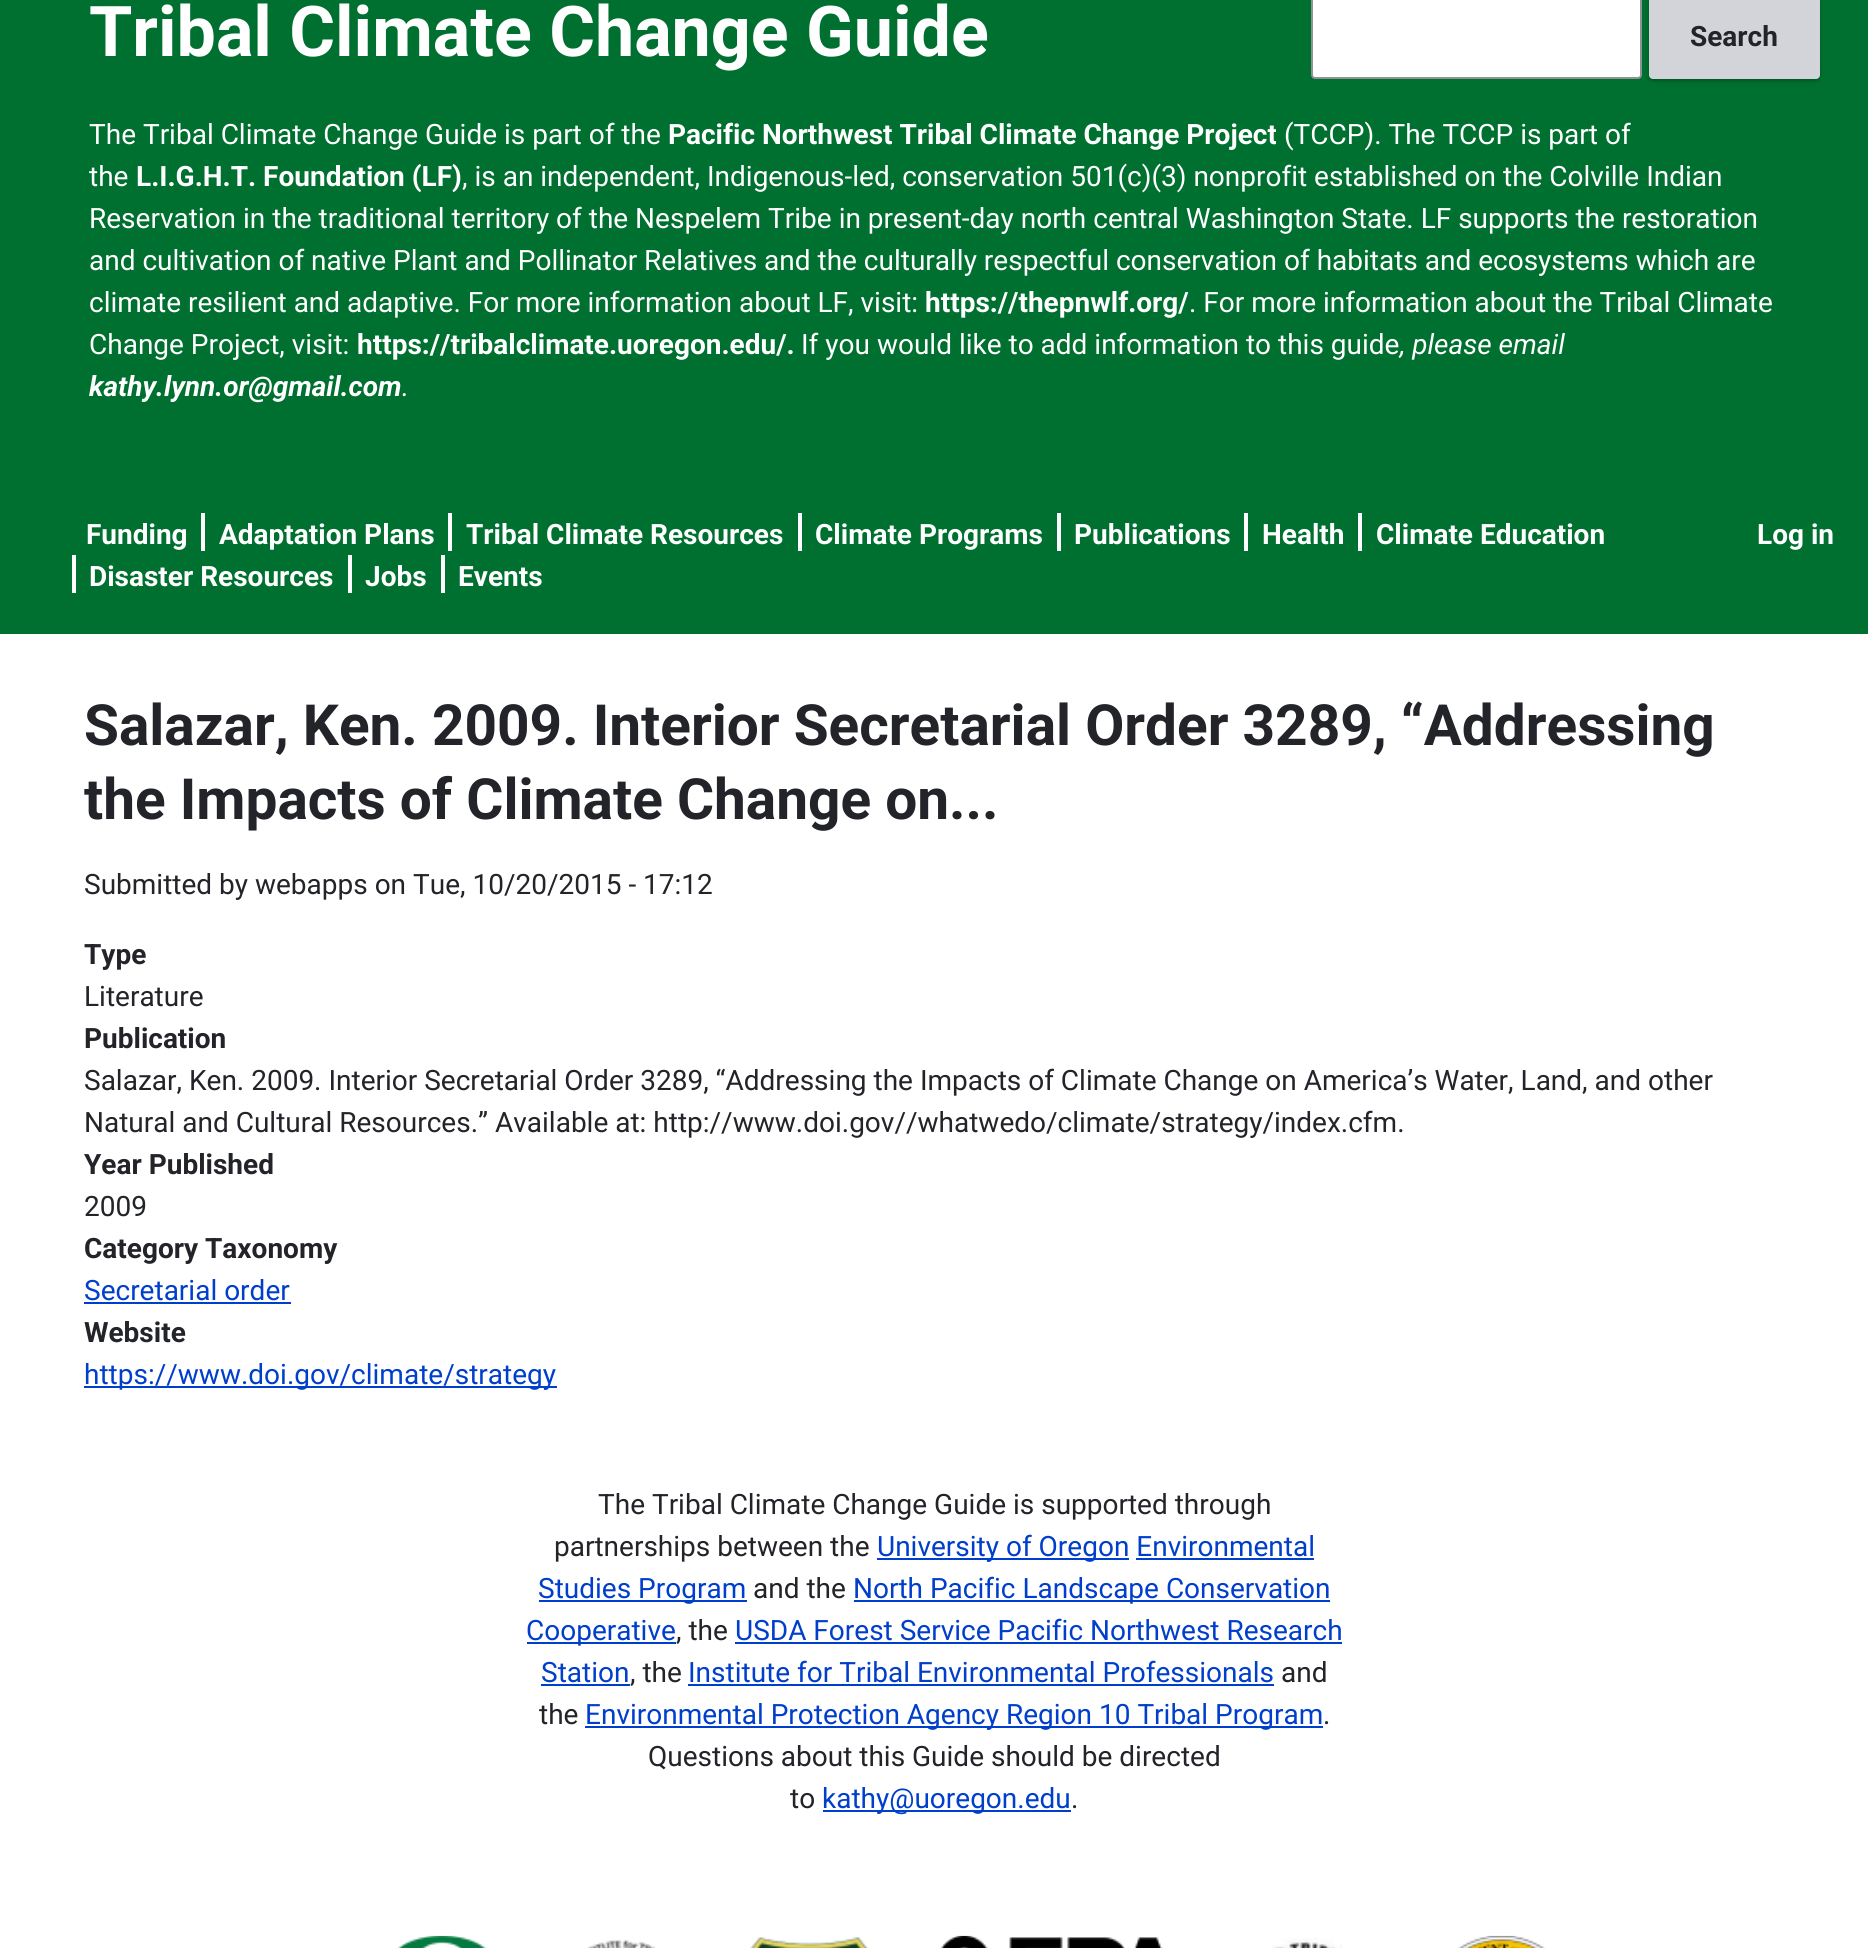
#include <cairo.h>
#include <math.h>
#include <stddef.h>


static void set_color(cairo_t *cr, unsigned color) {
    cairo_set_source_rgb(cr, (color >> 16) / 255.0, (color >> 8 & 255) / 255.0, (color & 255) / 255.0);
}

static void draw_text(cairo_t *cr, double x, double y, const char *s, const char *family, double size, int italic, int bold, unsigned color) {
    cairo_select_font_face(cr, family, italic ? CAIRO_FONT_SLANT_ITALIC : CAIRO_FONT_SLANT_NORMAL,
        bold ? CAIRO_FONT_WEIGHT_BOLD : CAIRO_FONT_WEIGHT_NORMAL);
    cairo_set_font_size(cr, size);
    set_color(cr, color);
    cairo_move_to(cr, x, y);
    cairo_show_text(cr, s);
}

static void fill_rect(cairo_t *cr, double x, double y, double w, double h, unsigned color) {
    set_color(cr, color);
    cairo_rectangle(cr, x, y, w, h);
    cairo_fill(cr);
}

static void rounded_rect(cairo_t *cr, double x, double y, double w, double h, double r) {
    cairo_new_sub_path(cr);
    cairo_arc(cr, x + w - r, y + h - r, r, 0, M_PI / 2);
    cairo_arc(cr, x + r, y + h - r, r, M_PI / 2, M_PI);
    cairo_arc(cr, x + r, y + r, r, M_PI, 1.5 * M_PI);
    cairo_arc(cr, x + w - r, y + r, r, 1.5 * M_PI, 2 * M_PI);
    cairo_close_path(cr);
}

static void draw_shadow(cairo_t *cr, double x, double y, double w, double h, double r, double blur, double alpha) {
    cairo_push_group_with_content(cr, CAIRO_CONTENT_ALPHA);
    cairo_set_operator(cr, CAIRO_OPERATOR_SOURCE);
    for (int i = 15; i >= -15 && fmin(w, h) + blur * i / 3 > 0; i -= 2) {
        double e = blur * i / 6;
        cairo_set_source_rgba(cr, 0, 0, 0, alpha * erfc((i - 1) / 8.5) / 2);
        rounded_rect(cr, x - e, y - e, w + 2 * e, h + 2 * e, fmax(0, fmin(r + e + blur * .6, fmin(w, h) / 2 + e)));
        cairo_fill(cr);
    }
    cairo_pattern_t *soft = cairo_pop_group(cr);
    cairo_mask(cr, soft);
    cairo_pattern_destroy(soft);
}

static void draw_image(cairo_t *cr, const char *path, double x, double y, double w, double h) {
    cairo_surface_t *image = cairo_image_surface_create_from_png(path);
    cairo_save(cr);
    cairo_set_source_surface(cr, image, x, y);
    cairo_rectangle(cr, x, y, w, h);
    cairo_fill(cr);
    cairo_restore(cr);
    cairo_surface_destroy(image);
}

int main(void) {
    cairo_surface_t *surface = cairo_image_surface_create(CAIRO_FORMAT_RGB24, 1868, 1948);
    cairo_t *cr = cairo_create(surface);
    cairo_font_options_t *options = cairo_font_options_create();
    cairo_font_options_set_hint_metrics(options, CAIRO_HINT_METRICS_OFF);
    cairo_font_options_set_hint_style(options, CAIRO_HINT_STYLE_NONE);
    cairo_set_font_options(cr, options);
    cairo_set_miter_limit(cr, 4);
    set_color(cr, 0xFFFFFF);
    cairo_paint(cr);
    fill_rect(cr, 0, 0, 1868, 634, 0x007030);
    draw_text(cr, 89, 56, "Tribal Climate Change Guide", "Roboto", 70, 0, 1, 0xFFFFFF);
    rounded_rect(cr, 1312, -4, 329, 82, 3);
    cairo_fill_preserve(cr);
    set_color(cr, 0x919297);
    cairo_stroke(cr);
    set_color(cr, 0x000000);
    draw_shadow(cr, 1649, -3, 171, 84, 4, 2, 0.25);
    set_color(cr, 0xD3D4D9);
    rounded_rect(cr, 1649, -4, 171, 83, 4);
    cairo_fill(cr);
    draw_text(cr, 1690, 46, "Search", "Roboto", 28, 0, 1, 0x232429);
    draw_text(cr, 89, 144, "The Tribal Climate Change Guide is part of the", "Roboto", 28, 0, 0, 0xFFFFFF);
    draw_text(cr, 668, 144, "Pacific Northwest Tribal Climate Change Project", "Roboto", 28, 0, 1, 0xFFFFFF);
    draw_text(cr, 1284, 144, "(TCCP). The TCCP is part of", "Roboto", 28, 0, 0, 0xFFFFFF);
    draw_text(cr, 89, 186, "the", "Roboto", 28, 0, 0, 0xFFFFFF);
    draw_text(cr, 136, 186, "L.I.G.H.T. Foundation (LF)", "Roboto", 28, 0, 1, 0xFFFFFF);
    draw_text(cr, 462, 186, ", is an independent, Indigenous-led, conservation 501(c)(3) nonprofit established on the Colville Indian", "Roboto", 28, 0, 0, 0xFFFFFF);
    draw_text(cr, 89, 228, "Reservation in the traditional territory of the Nespelem Tribe in present-day north central Washington State. LF supports the restoration", "Roboto", 28, 0, 0, 0xFFFFFF);
    draw_text(cr, 89, 270, "and cultivation of native Plant and Pollinator Relatives and the culturally respectful conservation of habitats and ecosystems which are", "Roboto", 28, 0, 0, 0xFFFFFF);
    draw_text(cr, 89, 312, "climate resilient and adaptive. For more information about LF, visit:", "Roboto", 28, 0, 0, 0xFFFFFF);
    draw_text(cr, 925, 312, "https://thepnwlf.org/", "Roboto", 28, 0, 1, 0xFFFFFF);
    draw_text(cr, 1189, 312, ". For more information about the Tribal Climate", "Roboto", 28, 0, 0, 0xFFFFFF);
    draw_text(cr, 89, 354, "Change Project, visit:", "Roboto", 28, 0, 0, 0xFFFFFF);
    draw_text(cr, 357, 354, "https://tribalclimate.uoregon.edu/.", "Roboto", 28, 0, 1, 0xFFFFFF);
    draw_text(cr, 801, 354, "If you would like to add information to this guide", "Roboto", 28, 0, 0, 0xFFFFFF);
    draw_text(cr, 1400, 354, ", please email", "Roboto", 28, 1, 0, 0xFFFFFF);
    draw_text(cr, 89, 396, "kathy.lynn.or@gmail.com", "Roboto", 28, 1, 1, 0xFFFFFF);
    draw_text(cr, 402, 396, ".", "Roboto", 28, 1, 0, 0xFFFFFF);
    draw_text(cr, 86, 544, "Funding", "Roboto", 28, 0, 1, 0xFFFFFF);
    draw_text(cr, 219, 544, "Adaptation Plans", "Roboto", 28, 0, 1, 0xFFFFFF);
    fill_rect(cr, 201, 513, 4, 38, 0xFFFFFF);
    draw_text(cr, 466, 544, "Tribal Climate Resources", "Roboto", 28, 0, 1, 0xFFFFFF);
    fill_rect(cr, 448, 513, 4, 38, 0xFFFFFF);
    draw_text(cr, 815, 544, "Climate Programs", "Roboto", 28, 0, 1, 0xFFFFFF);
    fill_rect(cr, 798, 513, 4, 38, 0xFFFFFF);
    draw_text(cr, 1074, 544, "Publications", "Roboto", 28, 0, 1, 0xFFFFFF);
    fill_rect(cr, 1057, 513, 4, 38, 0xFFFFFF);
    draw_text(cr, 1262, 544, "Health", "Roboto", 28, 0, 1, 0xFFFFFF);
    fill_rect(cr, 1244, 513, 4, 38, 0xFFFFFF);
    draw_text(cr, 1376, 544, "Climate Education", "Roboto", 28, 0, 1, 0xFFFFFF);
    fill_rect(cr, 1358, 513, 4, 38, 0xFFFFFF);
    draw_text(cr, 89, 586, "Disaster Resources", "Roboto", 28, 0, 1, 0xFFFFFF);
    fill_rect(cr, 72, 555, 4, 38, 0xFFFFFF);
    draw_text(cr, 365, 586, "Jobs", "Roboto", 28, 0, 1, 0xFFFFFF);
    fill_rect(cr, 348, 555, 4, 38, 0xFFFFFF);
    draw_text(cr, 458, 586, "Events", "Roboto", 28, 0, 1, 0xFFFFFF);
    fill_rect(cr, 441, 555, 4, 38, 0xFFFFFF);
    draw_text(cr, 1757, 544, "Log in", "Roboto", 28, 0, 1, 0xFFFFFF);
    draw_text(cr, 84, 745, "Salazar, Ken. 2009. Interior Secretarial Order 3289, “Addressing", "Roboto", 56.75, 0, 1, 0x232429);
    draw_text(cr, 84, 819, "the Impacts of Climate Change on...", "Roboto", 56.75, 0, 1, 0x232429);
    draw_text(cr, 84, 894, "Submitted by webapps on Tue, 10/20/2015 - 17:12", "Roboto", 28, 0, 0, 0x232429);
    draw_text(cr, 84, 964, "Type", "Roboto", 28, 0, 1, 0x232429);
    draw_text(cr, 84, 1006, "Literature", "Roboto", 28, 0, 0, 0x232429);
    draw_text(cr, 84, 1048, "Publication", "Roboto", 28, 0, 1, 0x232429);
    draw_text(cr, 84, 1090, "Salazar, Ken. 2009. Interior Secretarial Order 3289, “Addressing the Impacts of Climate Change on America’s Water, Land, and other", "Roboto", 28, 0, 0, 0x232429);
    draw_text(cr, 84, 1132, "Natural and Cultural Resources.” Available at: http://www.doi.gov//whatwedo/climate/strategy/index.cfm.", "Roboto", 28, 0, 0, 0x232429);
    draw_text(cr, 84, 1174, "Year Published", "Roboto", 28, 0, 1, 0x232429);
    draw_text(cr, 84, 1216, "2009", "Roboto", 28, 0, 0, 0x232429);
    draw_text(cr, 84, 1258, "Category Taxonomy", "Roboto", 28, 0, 1, 0x232429);
    draw_text(cr, 84, 1300, "Secretarial order", "Roboto", 28, 0, 0, 0x003ECC);
    fill_rect(cr, 84, 1302, 207, 2, 0x003ECC);
    draw_text(cr, 84, 1342, "Website", "Roboto", 28, 0, 1, 0x232429);
    fill_rect(cr, 84, 1386, 473, 2, 0x003ECC);
    draw_text(cr, 84, 1384, "https://www.doi.gov/climate/strategy", "Roboto", 28, 0, 0, 0x003ECC);
    draw_text(cr, 598, 1514, "The Tribal Climate Change Guide is supported through", "Roboto", 28, 0, 0, 0x232429);
    draw_text(cr, 554, 1556, "partnerships between the", "Roboto", 28, 0, 0, 0x232429);
    fill_rect(cr, 877, 1558, 252, 2, 0x003ECC);
    draw_text(cr, 877, 1556, "University of Oregon Environmental", "Roboto", 28, 0, 0, 0x003ECC);
    fill_rect(cr, 539, 1600, 208, 2, 0x003ECC);
    draw_text(cr, 538, 1598, "Studies Program", "Roboto", 28, 0, 0, 0x003ECC);
    fill_rect(cr, 1136, 1558, 178, 2, 0x003ECC);
    draw_text(cr, 753, 1598, "and the", "Roboto", 28, 0, 0, 0x232429);
    fill_rect(cr, 854, 1600, 476, 2, 0x003ECC);
    draw_text(cr, 853, 1598, "North Pacific Landscape Conservation", "Roboto", 28, 0, 0, 0x003ECC);
    fill_rect(cr, 527, 1642, 149, 2, 0x003ECC);
    draw_text(cr, 526, 1640, "Cooperative", "Roboto", 28, 0, 0, 0x003ECC);
    draw_text(cr, 676, 1640, ", the", "Roboto", 28, 0, 0, 0x232429);
    draw_text(cr, 735, 1640, "USDA Forest Service Pacific Northwest Research", "Roboto", 28, 0, 0, 0x003ECC);
    fill_rect(cr, 735, 1642, 607, 2, 0x003ECC);
    draw_text(cr, 541, 1682, "Station", "Roboto", 28, 0, 0, 0x003ECC);
    fill_rect(cr, 541, 1684, 89, 2, 0x003ECC);
    draw_text(cr, 630, 1682, ", the", "Roboto", 28, 0, 0, 0x232429);
    draw_text(cr, 688, 1682, "Institute for Tribal Environmental Professionals", "Roboto", 28, 0, 0, 0x003ECC);
    fill_rect(cr, 688, 1684, 586, 2, 0x003ECC);
    draw_text(cr, 1281, 1682, "and", "Roboto", 28, 0, 0, 0x232429);
    draw_text(cr, 539, 1724, "the", "Roboto", 28, 0, 0, 0x232429);
    fill_rect(cr, 585, 1726, 738, 2, 0x003ECC);
    draw_text(cr, 585, 1724, "Environmental Protection Agency Region 10 Tribal Program", "Roboto", 28, 0, 0, 0x003ECC);
    draw_text(cr, 1323, 1724, ".", "Roboto", 28, 0, 0, 0x232429);
    draw_text(cr, 648, 1766, "Questions about this Guide should be directed", "Roboto", 28, 0, 0, 0x232429);
    draw_text(cr, 790, 1808, "to", "Roboto", 28, 0, 0, 0x232429);
    fill_rect(cr, 823, 1810, 248, 2, 0x003ECC);
    draw_text(cr, 822, 1808, "kathy@uoregon.edu", "Roboto", 28, 0, 0, 0x003ECC);
    draw_text(cr, 1071, 1808, ".", "Roboto", 28, 0, 0, 0x232429);
    draw_image(cr, "assets/img1.png", 397, 1935, 90, 13);
    draw_image(cr, "assets/img2.png", 587, 1939, 70, 9);
    draw_image(cr, "assets/img3.png", 750, 1937, 119, 11);
    draw_image(cr, "assets/img4.png", 941, 1935, 222, 13);
    draw_image(cr, "assets/img5.png", 1272, 1938, 70, 10);
    draw_image(cr, "assets/img6.png", 1457, 1935, 89, 13);
    cairo_surface_write_to_png(surface, "output.png");
    cairo_font_options_destroy(options);
    cairo_destroy(cr);
    cairo_surface_destroy(surface);
    return 0;
}
